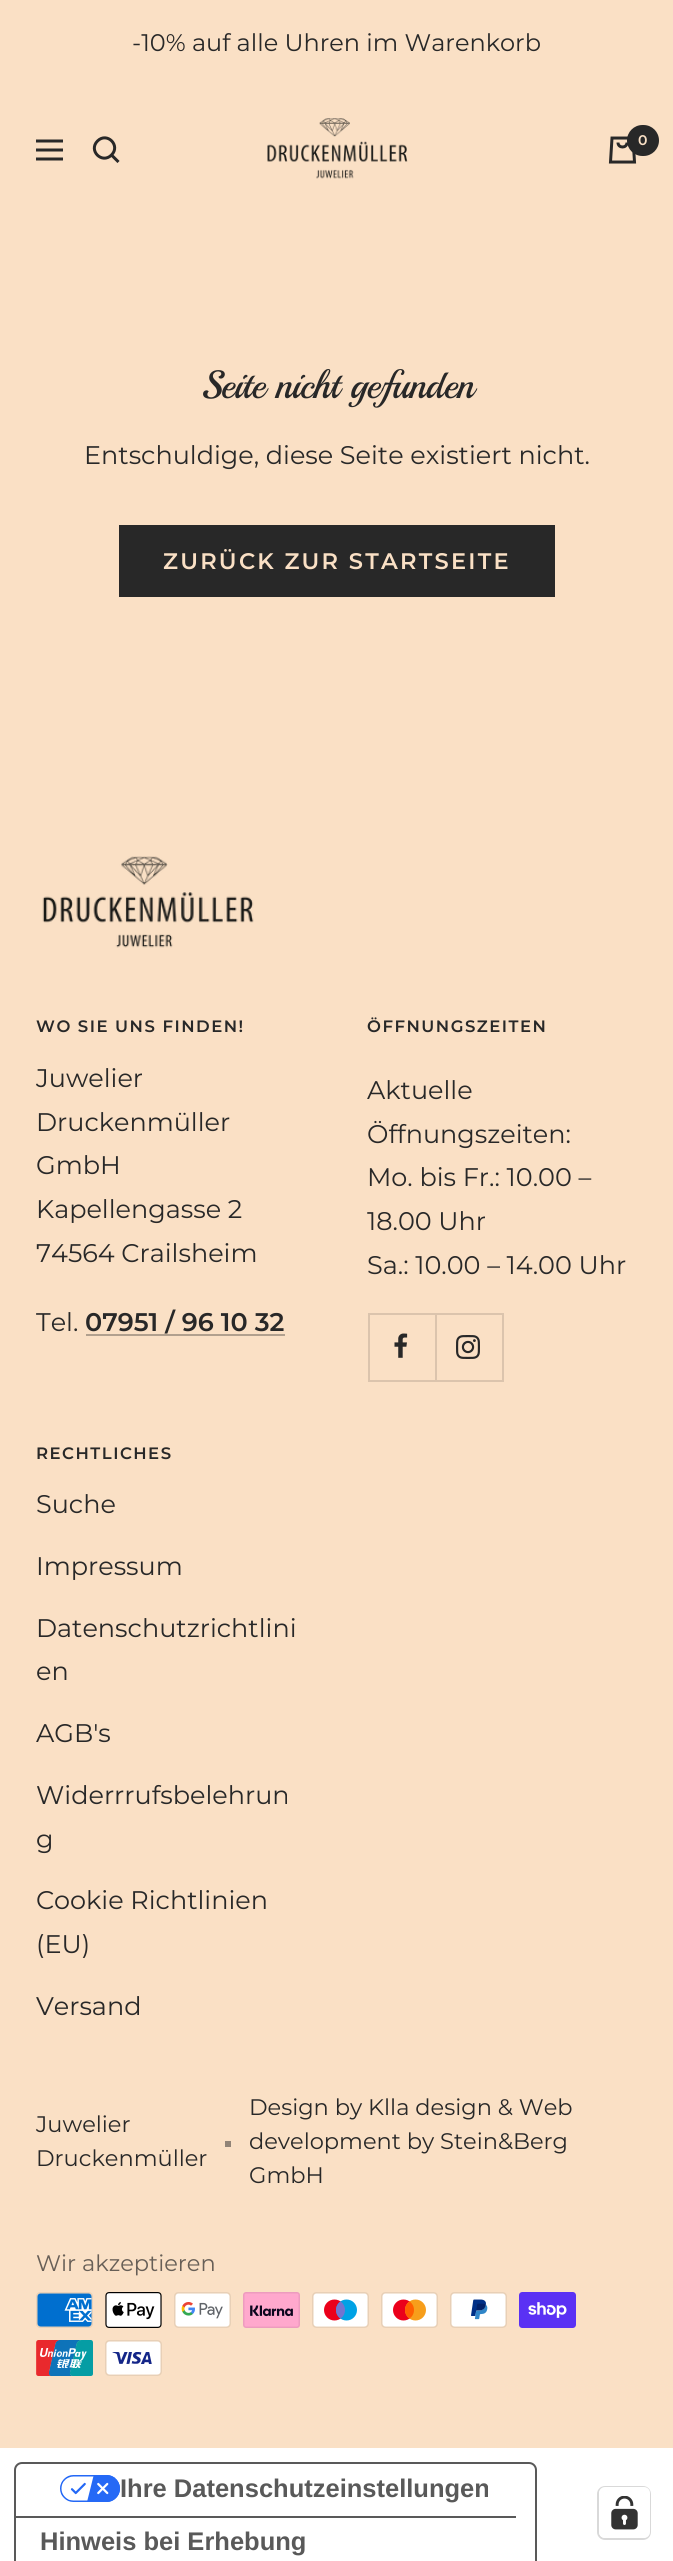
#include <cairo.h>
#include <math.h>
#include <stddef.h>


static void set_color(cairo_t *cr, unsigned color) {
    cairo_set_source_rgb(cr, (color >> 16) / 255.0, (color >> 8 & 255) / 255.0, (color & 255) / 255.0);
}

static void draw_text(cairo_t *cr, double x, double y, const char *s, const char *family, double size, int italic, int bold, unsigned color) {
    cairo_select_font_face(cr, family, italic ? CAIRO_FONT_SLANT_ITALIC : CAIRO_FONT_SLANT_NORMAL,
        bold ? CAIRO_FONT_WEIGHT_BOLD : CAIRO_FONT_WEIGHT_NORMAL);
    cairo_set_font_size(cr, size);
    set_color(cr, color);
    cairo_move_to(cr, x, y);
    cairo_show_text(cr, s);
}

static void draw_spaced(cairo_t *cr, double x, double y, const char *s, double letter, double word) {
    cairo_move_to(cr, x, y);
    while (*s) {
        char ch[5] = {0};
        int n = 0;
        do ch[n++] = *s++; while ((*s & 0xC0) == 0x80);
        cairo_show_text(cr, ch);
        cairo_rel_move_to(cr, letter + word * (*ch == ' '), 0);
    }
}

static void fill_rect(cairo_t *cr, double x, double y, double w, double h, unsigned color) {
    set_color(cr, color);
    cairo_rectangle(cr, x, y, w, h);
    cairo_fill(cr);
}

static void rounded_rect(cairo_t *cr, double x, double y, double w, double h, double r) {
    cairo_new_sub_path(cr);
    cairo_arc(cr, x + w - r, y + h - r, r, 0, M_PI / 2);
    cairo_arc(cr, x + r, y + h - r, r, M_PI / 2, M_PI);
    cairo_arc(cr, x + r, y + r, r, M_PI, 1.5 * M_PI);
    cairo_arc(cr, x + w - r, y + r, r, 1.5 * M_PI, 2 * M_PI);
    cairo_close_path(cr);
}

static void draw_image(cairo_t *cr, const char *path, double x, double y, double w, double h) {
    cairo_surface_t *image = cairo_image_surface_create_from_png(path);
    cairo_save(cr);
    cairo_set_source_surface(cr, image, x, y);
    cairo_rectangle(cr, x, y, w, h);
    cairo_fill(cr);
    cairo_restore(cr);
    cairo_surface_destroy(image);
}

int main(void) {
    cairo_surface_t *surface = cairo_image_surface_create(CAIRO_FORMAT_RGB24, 673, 2561);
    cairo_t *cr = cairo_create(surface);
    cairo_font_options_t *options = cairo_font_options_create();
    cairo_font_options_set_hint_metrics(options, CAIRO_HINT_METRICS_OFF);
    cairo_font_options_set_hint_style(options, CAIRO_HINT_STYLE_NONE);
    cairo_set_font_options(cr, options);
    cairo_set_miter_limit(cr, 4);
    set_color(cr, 0xFFFFFF);
    cairo_paint(cr);
    fill_rect(cr, 0, 0, 673, 2448, 0xFAE0C5);
    draw_text(cr, 132, 51, "-10% auf alle Uhren im Warenkorb", "Montserrat", 24, 0, 0, 0x282828);
    cairo_new_path(cr);
    cairo_move_to(cr, 36, 141);
    cairo_line_to(cr, 63, 141);
    cairo_move_to(cr, 36, 159);
    cairo_line_to(cr, 63, 159);
    cairo_close_path(cr);
    cairo_move_to(cr, 36, 150);
    cairo_line_to(cr, 63, 150);
    cairo_close_path(cr);
    cairo_set_line_width(cr, 3);
    cairo_stroke(cr);
    cairo_new_path(cr);
    cairo_move_to(cr, 111.5, 155);
    cairo_curve_to(cr, 121, 145.5, 107, 131.5, 97.5, 141);
    cairo_curve_to(cr, 88, 150.5, 102, 164.5, 111.5, 155);
    cairo_close_path(cr);
    cairo_move_to(cr, 111.5, 155);
    cairo_line_to(cr, 118.5, 162);
    cairo_stroke(cr);
    draw_image(cr, "assets/img1.png", 267, 118, 141, 61);
    cairo_new_path(cr);
    cairo_move_to(cr, 612, 138);
    cairo_line_to(cr, 633, 138);
    cairo_line_to(cr, 634.5, 162);
    cairo_line_to(cr, 610.5, 162);
    cairo_close_path(cr);
    cairo_move_to(cr, 618, 142.5);
    cairo_curve_to(cr, 618, 148.5, 627, 148.5, 627, 142.5);
    cairo_stroke(cr);
    rounded_rect(cr, 627, 125, 32, 31, 15.5);
    cairo_fill(cr);
    draw_text(cr, 638, 145, "0", "Montserrat SemiBold", 14, 0, 0, 0xFAE0C5);
    cairo_select_font_face(cr, "Playball", CAIRO_FONT_SLANT_NORMAL, CAIRO_FONT_WEIGHT_NORMAL);
    cairo_set_font_size(cr, 39);
    set_color(cr, 0x282828);
    draw_spaced(cr, 201, 398, "Seite nicht gefunden", -0.6, 0);
    draw_text(cr, 84, 464, "Entschuldige, diese Seite existiert nicht.", "Montserrat", 25.5, 0, 0, 0x282828);
    fill_rect(cr, 119, 525, 436, 72, 0x282828);
    cairo_select_font_face(cr, "Montserrat SemiBold", CAIRO_FONT_SLANT_NORMAL, CAIRO_FONT_WEIGHT_NORMAL);
    cairo_set_font_size(cr, 22.5);
    set_color(cr, 0xFAE0C5);
    draw_spaced(cr, 163, 569, "ZURÜCK ZUR STARTSEITE", 2.25, 0);
    draw_image(cr, "assets/img2.png", 42, 856, 212, 92);
    cairo_set_font_size(cr, 16.5);
    set_color(cr, 0x282828);
    draw_spaced(cr, 36, 1032, "WO SIE UNS FINDEN!", 1.5, 0);
    draw_text(cr, 36, 1087, "Juwelier", "Montserrat", 25.5, 0, 0, 0x282828);
    draw_text(cr, 36, 1131, "Druckenmüller", "Montserrat", 25.5, 0, 0, 0x282828);
    draw_text(cr, 36, 1174, "GmbH", "Montserrat", 25.5, 0, 0, 0x282828);
    draw_text(cr, 36, 1218, "Kapellengasse 2", "Montserrat", 25.5, 0, 0, 0x282828);
    draw_text(cr, 36, 1262, "74564 Crailsheim", "Montserrat", 25.5, 0, 0, 0x282828);
    draw_text(cr, 36, 1331, "Tel.", "Montserrat", 25.5, 0, 0, 0x282828);
    draw_text(cr, 85, 1331, "07951 / 96 10 32", "Montserrat SemiBold", 25.5, 0, 0, 0x282828);
    fill_rect(cr, 86, 1334, 199, 2, 0xB1A08E);
    cairo_set_font_size(cr, 16.5);
    set_color(cr, 0x282828);
    draw_spaced(cr, 367, 1032, "ÖFFNUNGSZEITEN", 1.5, 0);
    draw_text(cr, 367, 1099, "Aktuelle", "Montserrat", 25.5, 0, 0, 0x282828);
    draw_text(cr, 367, 1143, "Öffnungszeiten:", "Montserrat", 25.5, 0, 0, 0x282828);
    draw_text(cr, 367, 1186, "Mo. bis Fr.: 10.00 –", "Montserrat", 25.5, 0, 0, 0x282828);
    draw_text(cr, 367, 1230, "18.00 Uhr", "Montserrat", 25.5, 0, 0, 0x282828);
    draw_text(cr, 367, 1274, "Sa.: 10.00 – 14.00 Uhr", "Montserrat", 25.5, 0, 0, 0x282828);
    set_color(cr, 0xDBC4AD);
    cairo_new_path(cr);
    cairo_move_to(cr, 369, 1380);
    cairo_line_to(cr, 369, 1382);
    cairo_line_to(cr, 437, 1382);
    cairo_line_to(cr, 437, 1314);
    cairo_line_to(cr, 435, 1314);
    cairo_line_to(cr, 435, 1380);
    cairo_close_path(cr);
    cairo_fill(cr);
    fill_rect(cr, 368, 1380, 1, 2, 0xDBC4AD);
    fill_rect(cr, 435, 1313, 2, 1, 0xDBC4AD);
    fill_rect(cr, 368, 1313, 67, 2, 0xDBC4AD);
    fill_rect(cr, 368, 1313, 2, 67, 0xDBC4AD);
    draw_image(cr, "assets/img3.png", 394, 1333, 14, 25);
    cairo_new_path(cr);
    cairo_move_to(cr, 437, 1380);
    cairo_line_to(cr, 437, 1382);
    cairo_line_to(cr, 504, 1382);
    cairo_line_to(cr, 504, 1314);
    cairo_line_to(cr, 502, 1314);
    cairo_line_to(cr, 502, 1380);
    cairo_close_path(cr);
    cairo_fill(cr);
    fill_rect(cr, 502, 1313, 2, 1, 0xDBC4AD);
    fill_rect(cr, 435, 1313, 68, 2, 0xDBC4AD);
    draw_image(cr, "assets/img4.png", 456, 1335, 24, 24);
    cairo_select_font_face(cr, "Montserrat SemiBold", CAIRO_FONT_SLANT_NORMAL, CAIRO_FONT_WEIGHT_NORMAL);
    cairo_set_font_size(cr, 16.5);
    set_color(cr, 0x282828);
    draw_spaced(cr, 36, 1459, "RECHTLICHES", 1.5, 0);
    draw_text(cr, 36, 1513, "Suche", "Montserrat", 25.5, 0, 0, 0x282828);
    draw_text(cr, 36, 1575, "Impressum", "Montserrat", 25.5, 0, 0, 0x282828);
    draw_text(cr, 36, 1637, "Datenschutzrichtlini", "Montserrat", 25.5, 0, 0, 0x282828);
    draw_text(cr, 36, 1680, "en", "Montserrat", 25.5, 0, 0, 0x282828);
    draw_text(cr, 36, 1742, "AGB's", "Montserrat", 25.5, 0, 0, 0x282828);
    draw_text(cr, 36, 1804, "Widerrrufsbelehrun", "Montserrat", 25.5, 0, 0, 0x282828);
    draw_text(cr, 36, 1848, "g", "Montserrat", 25.5, 0, 0, 0x282828);
    draw_text(cr, 36, 1909, "Cookie Richtlinien", "Montserrat", 25.5, 0, 0, 0x282828);
    draw_text(cr, 36, 1953, "(EU)", "Montserrat", 25.5, 0, 0, 0x282828);
    draw_text(cr, 36, 2015, "Versand", "Montserrat", 25.5, 0, 0, 0x282828);
    draw_text(cr, 249, 2115, "Design by Klla design & Web", "Montserrat", 22.5, 0, 0, 0x282828);
    draw_text(cr, 36, 2132, "Juwelier", "Montserrat", 22.5, 0, 0, 0x282828);
    fill_rect(cr, 225, 2141, 6, 6, 0x918477);
    draw_text(cr, 249, 2149, "development by Stein&Berg", "Montserrat", 22.5, 0, 0, 0x282828);
    draw_text(cr, 36, 2166, "Druckenmüller", "Montserrat", 22.5, 0, 0, 0x282828);
    draw_text(cr, 249, 2183, "GmbH", "Montserrat", 22.5, 0, 0, 0x282828);
    draw_text(cr, 36, 2271, "Wir akzeptieren", "Montserrat", 22.5, 0, 0, 0x675F57);
    draw_image(cr, "assets/img5.png", 36, 2292, 57, 36);
    draw_image(cr, "assets/img6.png", 105, 2292, 57, 36);
    draw_image(cr, "assets/img7.png", 174, 2292, 57, 36);
    draw_image(cr, "assets/img8.png", 243, 2292, 57, 36);
    draw_image(cr, "assets/img9.png", 312, 2292, 57, 36);
    draw_image(cr, "assets/img10.png", 381, 2292, 57, 36);
    draw_image(cr, "assets/img11.png", 450, 2292, 57, 36);
    draw_image(cr, "assets/img12.png", 519, 2292, 57, 36);
    draw_image(cr, "assets/img13.png", 36, 2340, 57, 36);
    draw_image(cr, "assets/img14.png", 105, 2340, 57, 36);
    rounded_rect(cr, 15, 2463, 521, 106, 7);
    set_color(cr, 0x595959);
    cairo_set_line_width(cr, 2);
    cairo_stroke(cr);
    fill_rect(cr, 15, 2516, 501, 2, 0x595959);
    draw_image(cr, "assets/img15.png", 60, 2475, 60, 27);
    draw_text(cr, 120, 2497, "Ihre Datenschutzeinstellungen", "Liberation Sans", 25.5, 0, 1, 0x595959);
    draw_text(cr, 40, 2550, "Hinweis bei Erhebung", "Liberation Sans", 25.5, 0, 1, 0x595959);
    rounded_rect(cr, 598, 2487, 52, 52, 7);
    set_color(cr, 0xD9D9D9);
    cairo_stroke(cr);
    set_color(cr, 0xFFFFFF);
    rounded_rect(cr, 599, 2487, 51, 51, 6);
    cairo_fill(cr);
    draw_image(cr, "assets/img16.png", 611, 2496, 27, 34);
    cairo_surface_write_to_png(surface, "output.png");
    cairo_font_options_destroy(options);
    cairo_destroy(cr);
    cairo_surface_destroy(surface);
    return 0;
}
